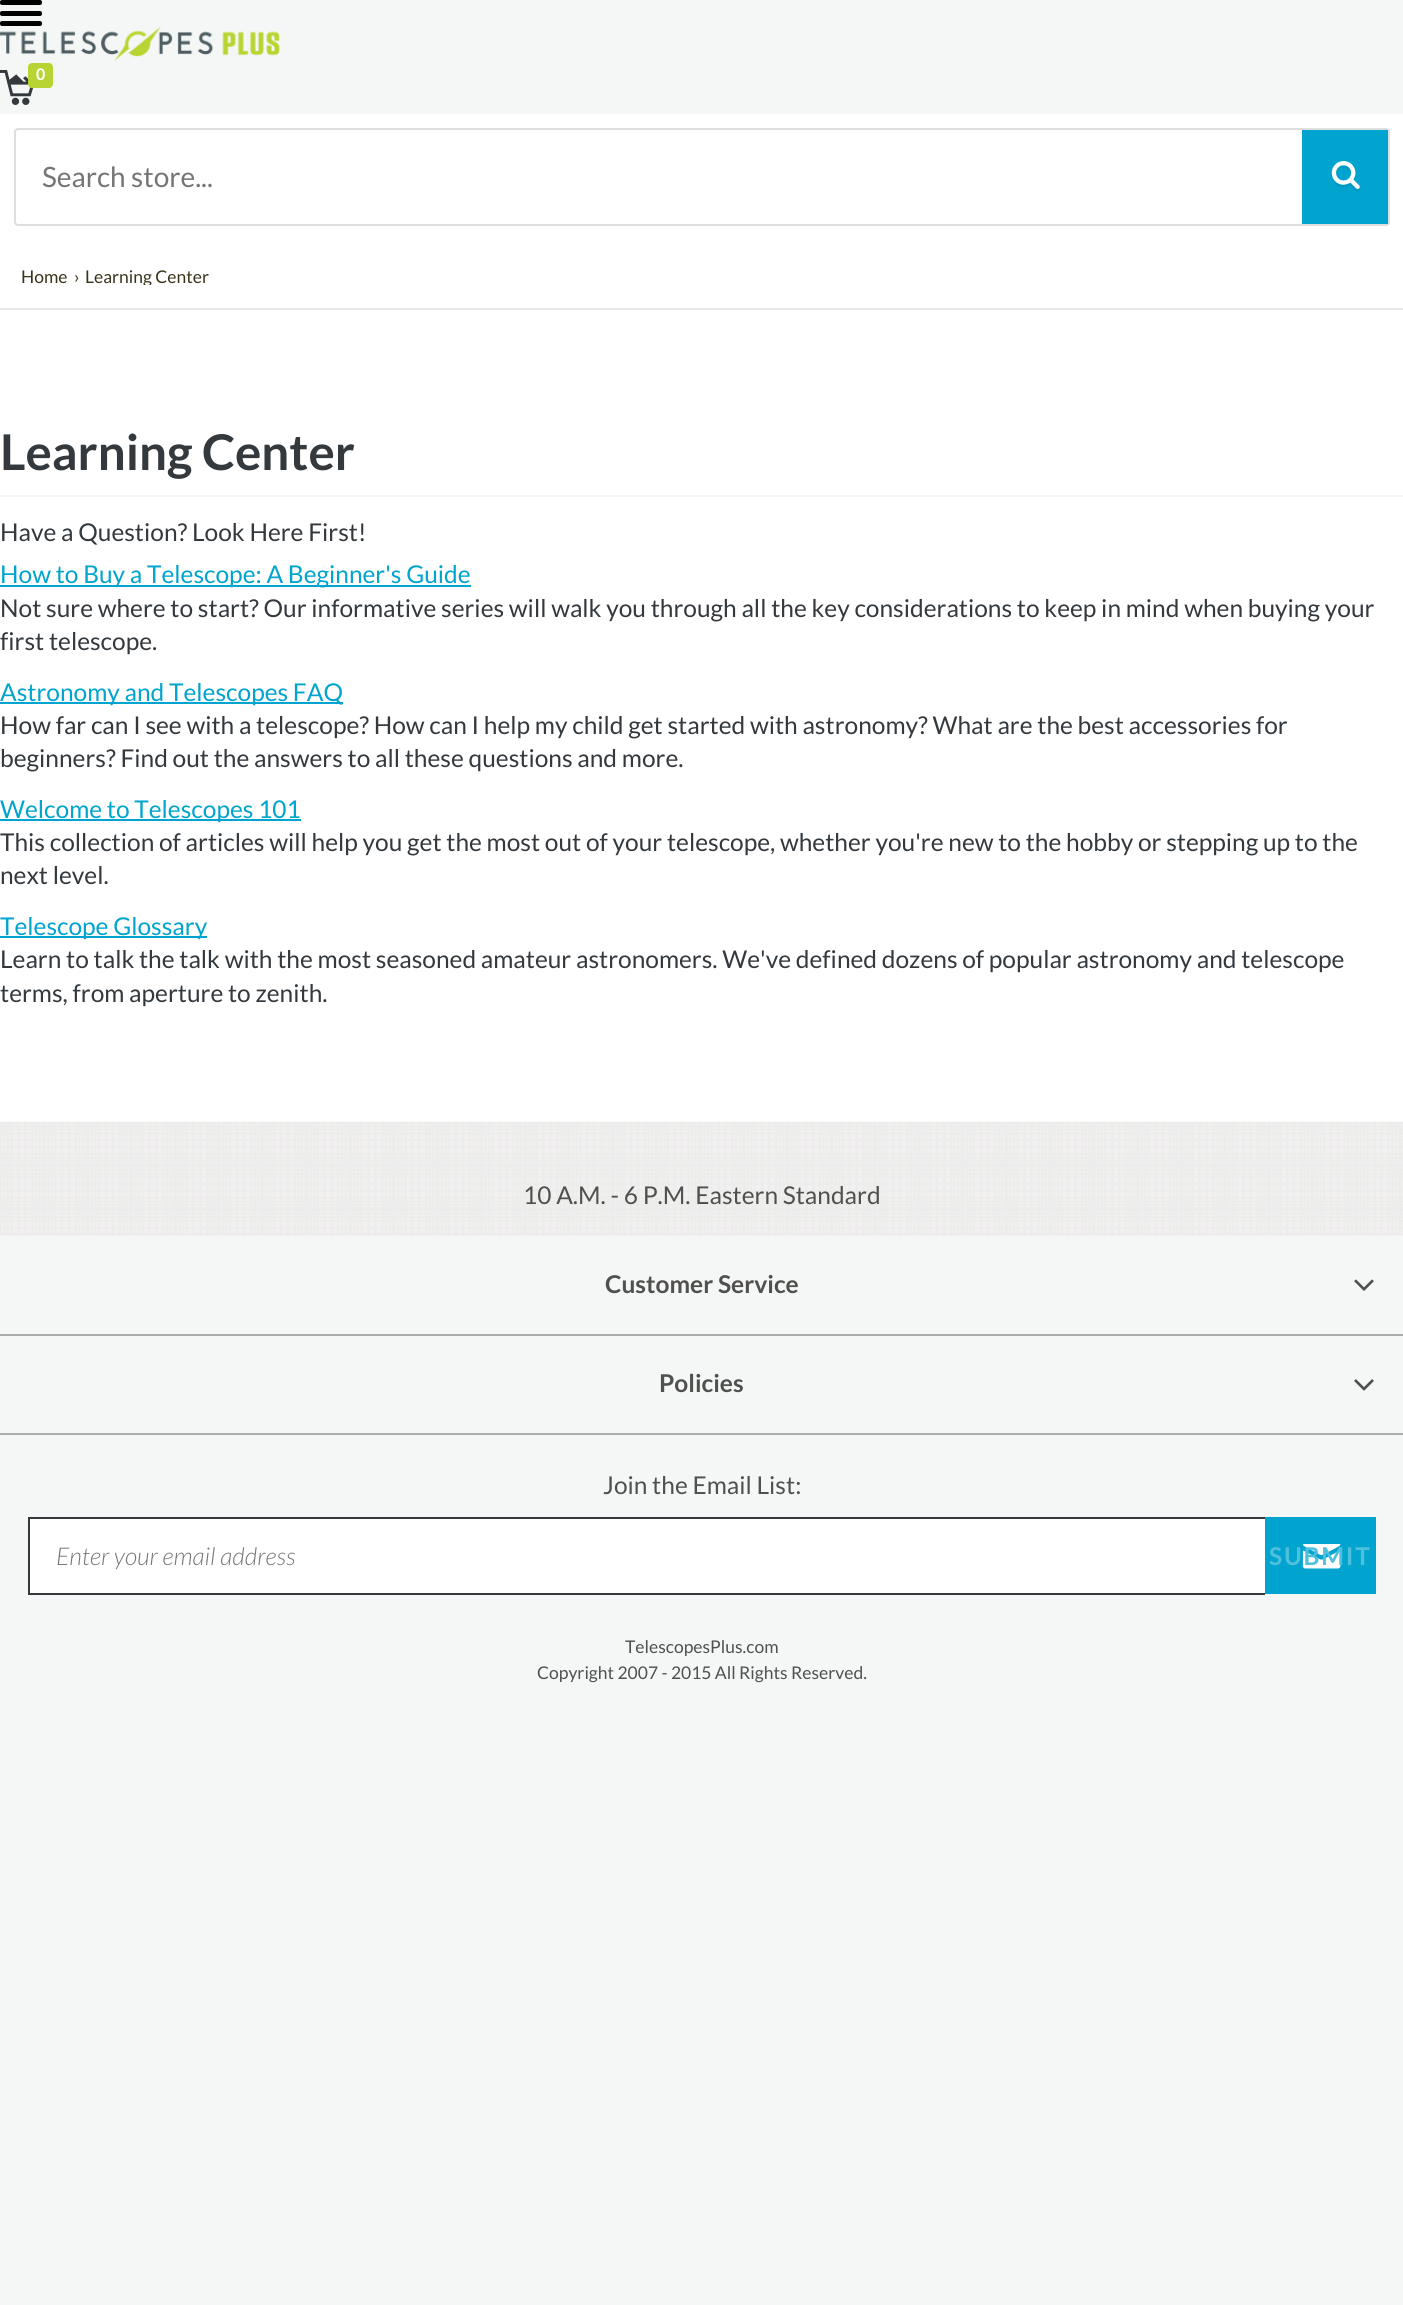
#include <cairo.h>
#include <math.h>
#include <stddef.h>


static void set_color(cairo_t *cr, unsigned color) {
    cairo_set_source_rgb(cr, (color >> 16) / 255.0, (color >> 8 & 255) / 255.0, (color & 255) / 255.0);
}

static void draw_text(cairo_t *cr, double x, double y, const char *s, const char *family, double size, int italic, int bold, unsigned color) {
    cairo_select_font_face(cr, family, italic ? CAIRO_FONT_SLANT_ITALIC : CAIRO_FONT_SLANT_NORMAL,
        bold ? CAIRO_FONT_WEIGHT_BOLD : CAIRO_FONT_WEIGHT_NORMAL);
    cairo_set_font_size(cr, size);
    set_color(cr, color);
    cairo_move_to(cr, x, y);
    cairo_show_text(cr, s);
}

static void draw_spaced(cairo_t *cr, double x, double y, const char *s, double letter, double word) {
    cairo_move_to(cr, x, y);
    while (*s) {
        char ch[5] = {0};
        int n = 0;
        do ch[n++] = *s++; while ((*s & 0xC0) == 0x80);
        cairo_show_text(cr, ch);
        cairo_rel_move_to(cr, letter + word * (*ch == ' '), 0);
    }
}

static void fill_rect(cairo_t *cr, double x, double y, double w, double h, unsigned color) {
    set_color(cr, color);
    cairo_rectangle(cr, x, y, w, h);
    cairo_fill(cr);
}

static void rounded_rect(cairo_t *cr, double x, double y, double w, double h, double r) {
    cairo_new_sub_path(cr);
    cairo_arc(cr, x + w - r, y + h - r, r, 0, M_PI / 2);
    cairo_arc(cr, x + r, y + h - r, r, M_PI / 2, M_PI);
    cairo_arc(cr, x + r, y + r, r, M_PI, 1.5 * M_PI);
    cairo_arc(cr, x + w - r, y + r, r, 1.5 * M_PI, 2 * M_PI);
    cairo_close_path(cr);
}

static void draw_image(cairo_t *cr, const char *path, double x, double y, double w, double h) {
    cairo_surface_t *image = cairo_image_surface_create_from_png(path);
    cairo_save(cr);
    cairo_set_source_surface(cr, image, x, y);
    cairo_rectangle(cr, x, y, w, h);
    cairo_fill(cr);
    cairo_restore(cr);
    cairo_surface_destroy(image);
}

int main(void) {
    cairo_surface_t *surface = cairo_image_surface_create(CAIRO_FORMAT_RGB24, 1403, 2305);
    cairo_t *cr = cairo_create(surface);
    cairo_font_options_t *options = cairo_font_options_create();
    cairo_font_options_set_hint_metrics(options, CAIRO_HINT_METRICS_OFF);
    cairo_font_options_set_hint_style(options, CAIRO_HINT_STYLE_NONE);
    cairo_set_font_options(cr, options);
    cairo_set_miter_limit(cr, 4);
    set_color(cr, 0xF5F7F6);
    cairo_paint(cr);
    set_color(cr, 0x000000);
    rounded_rect(cr, 0, 0, 42, 5, 2);
    cairo_fill(cr);
    rounded_rect(cr, 0, 11, 42, 5, 2);
    cairo_fill(cr);
    rounded_rect(cr, 0, 21, 42, 5, 2);
    cairo_fill(cr);
    draw_image(cr, "assets/img1.png", 0, 26, 280, 35);
    draw_image(cr, "assets/img2.png", 0, 70, 33, 35);
    set_color(cr, 0xB8D433);
    rounded_rect(cr, 28, 63, 25, 25, 4);
    cairo_fill(cr);
    draw_text(cr, 36, 80, "0", "Lato", 16, 0, 1, 0xFFFFFF);
    fill_rect(cr, 0, 114, 1403, 1008, 0xFFFFFF);
    rounded_rect(cr, 15, 129, 1374, 96, 3);
    set_color(cr, 0xDEDEDE);
    cairo_stroke(cr);
    draw_text(cr, 42, 187, "Search store...", "Lato", 28, 0, 0, 0x757575);
    fill_rect(cr, 1302, 130, 86, 94, 0x00A4CE);
    draw_image(cr, "assets/img3.png", 1331, 161, 29, 31);
    fill_rect(cr, 0, 308, 1403, 2, 0xE8E8E8);
    draw_text(cr, 21, 283, "Home", "Lato", 17.5, 0, 0, 0x3A331B);
    draw_text(cr, 74, 283, "›", "Lato", 17.5, 0, 0, 0x3A331B);
    cairo_save(cr);
    cairo_rectangle(cr, 21, 263, 1362, 22);
    cairo_clip(cr);
    draw_text(cr, 85, 283, "Learning Center", "Lato", 17.5, 0, 0, 0x3A331B);
    cairo_restore(cr);
    draw_text(cr, 0, 470, "Learning Center", "Lato", 49.25, 0, 1, 0x34393E);
    fill_rect(cr, 0, 495, 1403, 2, 0xF7F7F7);
    draw_text(cr, 0, 541, "Have a Question? Look Here First!", "Lato", 24.5, 0, 0, 0x34393E);
    fill_rect(cr, 0, 585, 471, 2, 0x00A4CE);
    draw_text(cr, 0, 583, "How to Buy a Telescope: A Beginner's Guide", "Lato", 24.5, 0, 0, 0x00A4CE);
    draw_text(cr, 0, 617, "Not sure where to start? Our informative series will walk you through all the key considerations to keep in mind when buying your", "Lato", 24.5, 0, 0, 0x34393E);
    draw_text(cr, 0, 650, "first telescope.", "Lato", 24.5, 0, 0, 0x34393E);
    fill_rect(cr, 0, 702, 343, 2, 0x00A4CE);
    draw_text(cr, 0, 701, "Astronomy and Telescopes FAQ", "Lato", 24.5, 0, 0, 0x00A4CE);
    draw_text(cr, 0, 734, "How far can I see with a telescope? How can I help my child get started with astronomy? What are the best accessories for", "Lato", 24.5, 0, 0, 0x34393E);
    draw_text(cr, 0, 767, "beginners? Find out the answers to all these questions and more.", "Lato", 24.5, 0, 0, 0x34393E);
    fill_rect(cr, 0, 819, 301, 2, 0x00A4CE);
    draw_text(cr, 0, 818, "Welcome to Telescopes 101", "Lato", 24.5, 0, 0, 0x00A4CE);
    draw_text(cr, 0, 851, "This collection of articles will help you get the most out of your telescope, whether you're new to the hobby or stepping up to the", "Lato", 24.5, 0, 0, 0x34393E);
    draw_text(cr, 0, 884, "next level.", "Lato", 24.5, 0, 0, 0x34393E);
    fill_rect(cr, 0, 936, 207, 2, 0x00A4CE);
    draw_text(cr, 0, 935, "Telescope Glossary", "Lato", 24.5, 0, 0, 0x00A4CE);
    draw_text(cr, 0, 968, "Learn to talk the talk with the most seasoned amateur astronomers. We've defined dozens of popular astronomy and telescope", "Lato", 24.5, 0, 0, 0x34393E);
    draw_text(cr, 0, 1002, "terms, from aperture to zenith.", "Lato", 24.5, 0, 0, 0x34393E);
    draw_image(cr, "assets/img4.png", 0, 1121, 1403, 115);
    draw_text(cr, 523, 1204, "10 A.M. - 6 P.M. Eastern Standard", "Lato", 24.5, 0, 0, 0x50514E);
    fill_rect(cr, 0, 1334, 1403, 2, 0xACACAC);
    draw_text(cr, 605, 1293, "Customer Service", "Lato", 24.5, 0, 1, 0x50514E);
    draw_image(cr, "assets/img5.png", 1354, 1279, 20, 12);
    fill_rect(cr, 0, 1433, 1403, 2, 0xACACAC);
    draw_text(cr, 659, 1392, "Policies", "Lato", 24.5, 0, 1, 0x50514E);
    draw_image(cr, "assets/img6.png", 1354, 1379, 20, 12);
    draw_text(cr, 603, 1494, "Join the Email List:", "Lato", 24.5, 0, 0, 0x50514E);
    fill_rect(cr, 30, 1519, 1235, 74, 0xFFFFFF);
    fill_rect(cr, 28, 1517, 1237, 2, 0x34393E);
    fill_rect(cr, 28, 1593, 1237, 2, 0x34393E);
    fill_rect(cr, 28, 1517, 2, 77, 0x34393E);
    draw_text(cr, 56, 1565, "Enter your email address", "Lato Light", 24.5, 1, 0, 0x757575);
    fill_rect(cr, 1265, 1517, 111, 77, 0x00A4CE);
    draw_image(cr, "assets/img7.png", 1302, 1544, 39, 25);
    cairo_select_font_face(cr, "Lato", CAIRO_FONT_SLANT_NORMAL, CAIRO_FONT_WEIGHT_BOLD);
    set_color(cr, 0x4EC0DD);
    draw_spaced(cr, 1269, 1565, "SUBMIT", 1.75, 0);
    draw_text(cr, 625, 1653, "TelescopesPlus.com", "Lato", 17.5, 0, 0, 0x50514E);
    draw_text(cr, 537, 1679, "Copyright 2007 - 2015 All Rights Reserved.", "Lato", 17.5, 0, 0, 0x50514E);
    cairo_surface_write_to_png(surface, "output.png");
    cairo_font_options_destroy(options);
    cairo_destroy(cr);
    cairo_surface_destroy(surface);
    return 0;
}
